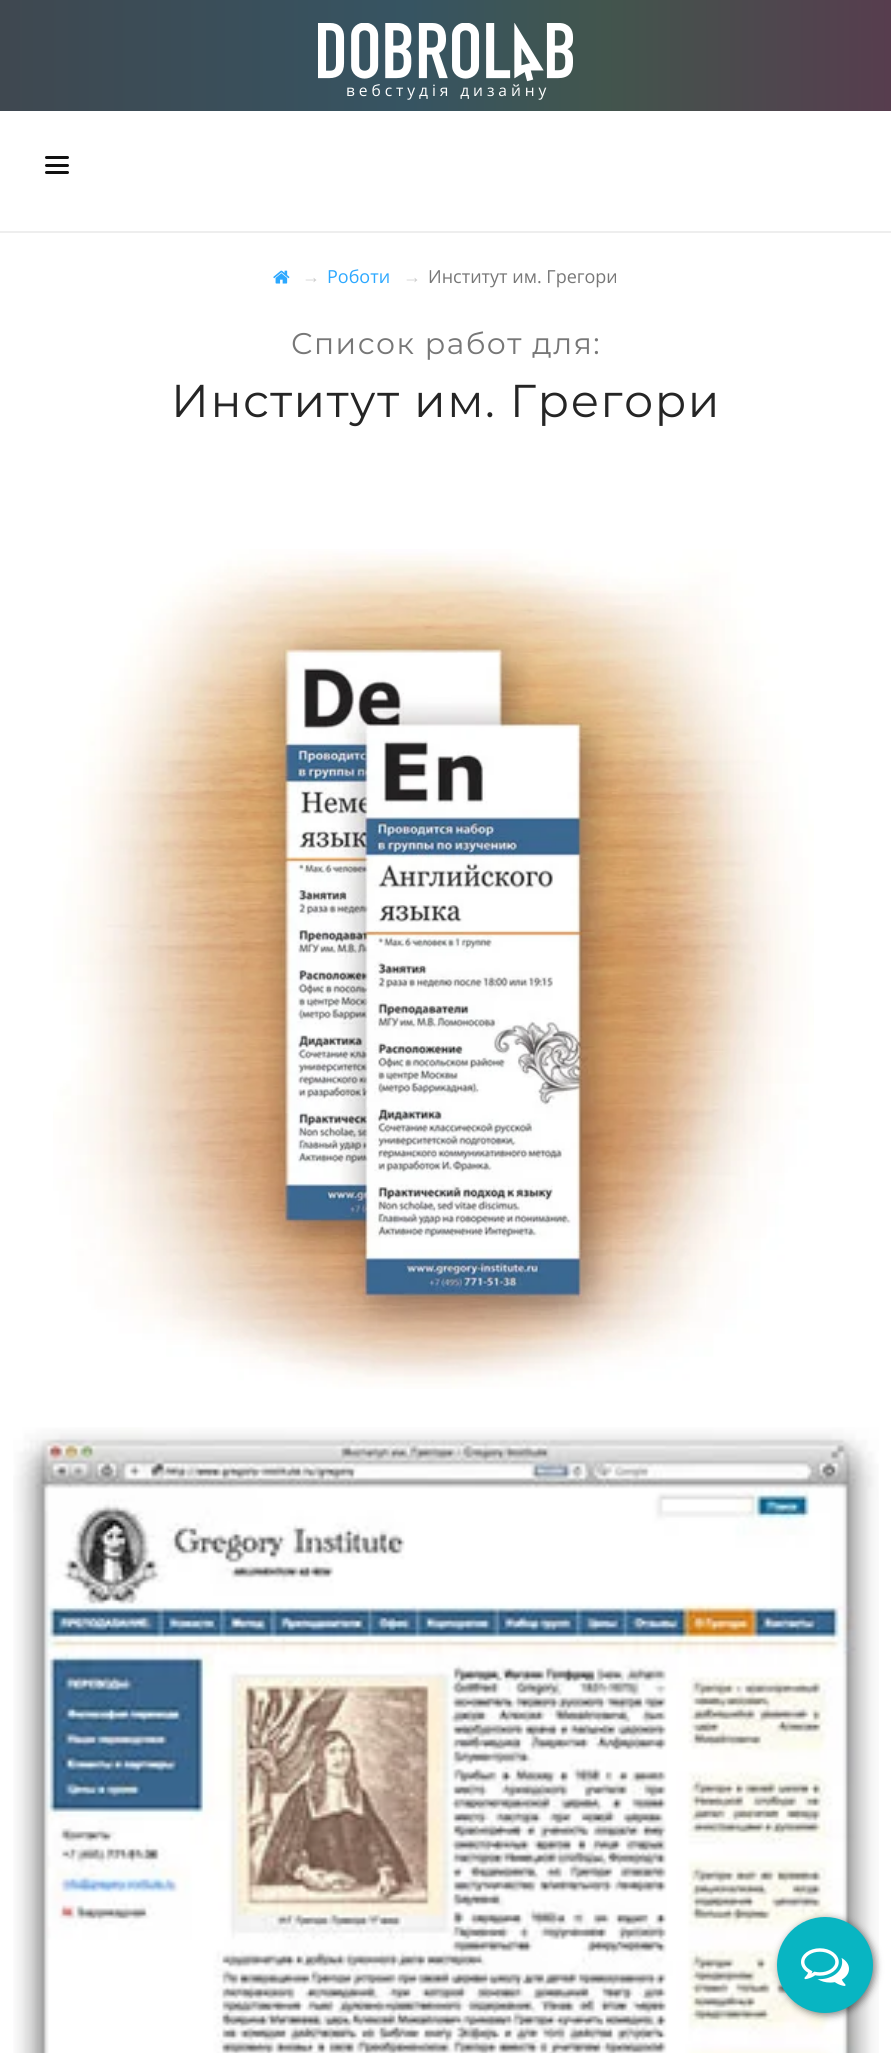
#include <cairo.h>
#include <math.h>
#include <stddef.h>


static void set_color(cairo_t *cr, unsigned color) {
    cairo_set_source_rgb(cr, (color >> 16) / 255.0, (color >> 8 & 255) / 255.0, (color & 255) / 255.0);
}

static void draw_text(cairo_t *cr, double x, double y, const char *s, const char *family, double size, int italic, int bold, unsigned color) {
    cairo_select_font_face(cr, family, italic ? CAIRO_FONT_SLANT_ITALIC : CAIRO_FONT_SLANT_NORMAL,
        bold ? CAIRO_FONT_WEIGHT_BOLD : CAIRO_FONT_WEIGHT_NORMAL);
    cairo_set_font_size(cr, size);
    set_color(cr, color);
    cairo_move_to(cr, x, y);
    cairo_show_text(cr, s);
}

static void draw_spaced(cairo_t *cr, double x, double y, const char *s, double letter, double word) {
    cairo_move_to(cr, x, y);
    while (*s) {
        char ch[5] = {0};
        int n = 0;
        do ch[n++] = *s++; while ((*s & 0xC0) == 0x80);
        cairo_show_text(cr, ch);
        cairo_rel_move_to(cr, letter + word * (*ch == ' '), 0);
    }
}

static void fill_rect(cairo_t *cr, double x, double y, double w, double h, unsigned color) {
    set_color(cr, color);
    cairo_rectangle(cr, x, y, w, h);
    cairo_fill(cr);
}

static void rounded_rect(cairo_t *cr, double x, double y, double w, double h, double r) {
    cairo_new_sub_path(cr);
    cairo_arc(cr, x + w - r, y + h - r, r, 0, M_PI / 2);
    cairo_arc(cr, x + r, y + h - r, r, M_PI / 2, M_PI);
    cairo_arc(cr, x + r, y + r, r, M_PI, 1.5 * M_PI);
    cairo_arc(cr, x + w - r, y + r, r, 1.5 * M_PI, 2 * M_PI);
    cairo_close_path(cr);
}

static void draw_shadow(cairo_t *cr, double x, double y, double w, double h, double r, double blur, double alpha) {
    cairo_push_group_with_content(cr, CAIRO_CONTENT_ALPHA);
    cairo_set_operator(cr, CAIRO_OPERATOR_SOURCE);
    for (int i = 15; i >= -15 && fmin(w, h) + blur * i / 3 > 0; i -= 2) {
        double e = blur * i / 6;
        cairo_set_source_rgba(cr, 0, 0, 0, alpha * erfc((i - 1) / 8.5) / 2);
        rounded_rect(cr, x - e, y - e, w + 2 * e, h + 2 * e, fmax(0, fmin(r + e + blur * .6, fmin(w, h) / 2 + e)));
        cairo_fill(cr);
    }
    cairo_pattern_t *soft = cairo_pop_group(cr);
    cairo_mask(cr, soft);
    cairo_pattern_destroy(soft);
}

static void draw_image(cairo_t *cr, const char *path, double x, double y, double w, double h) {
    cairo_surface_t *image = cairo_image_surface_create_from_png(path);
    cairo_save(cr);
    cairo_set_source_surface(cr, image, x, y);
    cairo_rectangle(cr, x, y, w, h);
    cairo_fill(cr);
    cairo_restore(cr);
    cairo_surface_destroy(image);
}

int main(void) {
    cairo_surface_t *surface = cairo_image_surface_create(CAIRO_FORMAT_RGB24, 891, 2053);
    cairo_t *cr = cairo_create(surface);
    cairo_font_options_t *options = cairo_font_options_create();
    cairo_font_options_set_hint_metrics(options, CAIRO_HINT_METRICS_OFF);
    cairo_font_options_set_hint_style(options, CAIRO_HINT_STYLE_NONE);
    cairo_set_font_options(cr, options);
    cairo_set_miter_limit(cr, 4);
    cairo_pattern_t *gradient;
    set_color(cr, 0xFFFFFF);
    cairo_paint(cr);
    gradient = cairo_pattern_create_linear(0, 56, 891, 55);
    cairo_pattern_add_color_stop_rgba(gradient, 0, 0.247, 0.282, 0.314, 1);
    cairo_pattern_add_color_stop_rgba(gradient, 0.46, 0.212, 0.329, 0.384, 1);
    cairo_pattern_add_color_stop_rgba(gradient, 0.6, 0.243, 0.333, 0.329, 1);
    cairo_pattern_add_color_stop_rgba(gradient, 0.68, 0.259, 0.333, 0.302, 1);
    cairo_pattern_add_color_stop_rgba(gradient, 1, 0.341, 0.239, 0.306, 1);
    cairo_set_source(cr, gradient);
    cairo_pattern_destroy(gradient);
    cairo_rectangle(cr, 0, 0, 891, 111);
    cairo_fill(cr);
    draw_image(cr, "assets/img1.png", 318, 23, 255, 59);
    cairo_select_font_face(cr, "Open Sans", CAIRO_FONT_SLANT_NORMAL, CAIRO_FONT_WEIGHT_NORMAL);
    cairo_set_font_size(cr, 15.6);
    set_color(cr, 0xFFFFFF);
    draw_spaced(cr, 346, 96, "вебстудiя дизайну", 3.9, 0);
    fill_rect(cr, 0, 231, 891, 2, 0xEEEEEE);
    set_color(cr, 0x111111);
    rounded_rect(cr, 45, 164, 24, 3, 1.5);
    cairo_fill(cr);
    rounded_rect(cr, 45, 156, 24, 3, 1.5);
    cairo_fill(cr);
    rounded_rect(cr, 45, 171, 24, 3, 1.5);
    cairo_fill(cr);
    draw_image(cr, "assets/img2.png", 273, 270, 17, 14);
    draw_text(cr, 302, 283, "→", "Liberation Sans", 18, 0, 0, 0xCCCCCC);
    draw_text(cr, 327, 283, "Роботи", "Open Sans", 18, 0, 0, 0x2CA8FF);
    draw_text(cr, 403, 283, "→", "Liberation Sans", 18, 0, 0, 0xCCCCCC);
    draw_text(cr, 428, 283, "Институт им. Грегори", "Open Sans", 18, 0, 0, 0x777777);
    cairo_select_font_face(cr, "Montserrat", CAIRO_FONT_SLANT_NORMAL, CAIRO_FONT_WEIGHT_NORMAL);
    cairo_set_font_size(cr, 29.9);
    draw_spaced(cr, 291, 354, "Список работ для:", 1.5, 0);
    cairo_set_font_size(cr, 46);
    set_color(cr, 0x252525);
    draw_spaced(cr, 171, 417, "Институт им. Грегори", 1.5, 0);
    draw_image(cr, "assets/img3.png", 53, 549, 761, 840);
    draw_image(cr, "assets/img4.png", 13, 1427, 866, 626);
    set_color(cr, 0x000000);
    draw_shadow(cr, 779, 1919, 96, 96, 48, 4, 0.5);
    set_color(cr, 0x08B5C2);
    cairo_arc(cr, 825, 1965, 48, 0, 2 * M_PI);
    cairo_fill(cr);
    draw_image(cr, "assets/img5.png", 801, 1948, 48, 38);
    cairo_surface_write_to_png(surface, "output.png");
    cairo_font_options_destroy(options);
    cairo_destroy(cr);
    cairo_surface_destroy(surface);
    return 0;
}
